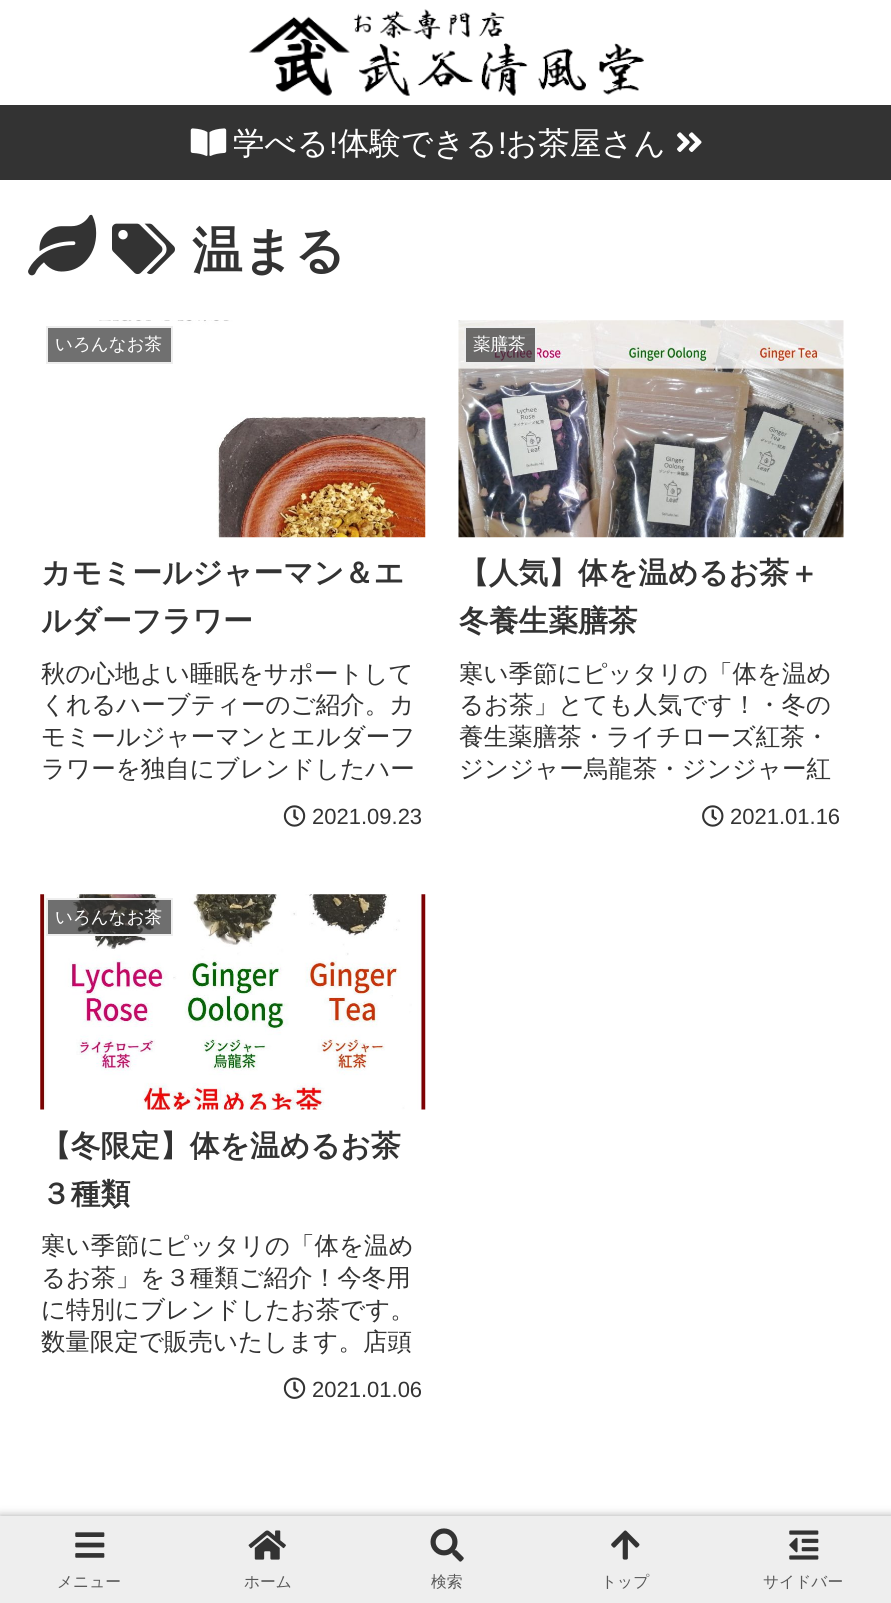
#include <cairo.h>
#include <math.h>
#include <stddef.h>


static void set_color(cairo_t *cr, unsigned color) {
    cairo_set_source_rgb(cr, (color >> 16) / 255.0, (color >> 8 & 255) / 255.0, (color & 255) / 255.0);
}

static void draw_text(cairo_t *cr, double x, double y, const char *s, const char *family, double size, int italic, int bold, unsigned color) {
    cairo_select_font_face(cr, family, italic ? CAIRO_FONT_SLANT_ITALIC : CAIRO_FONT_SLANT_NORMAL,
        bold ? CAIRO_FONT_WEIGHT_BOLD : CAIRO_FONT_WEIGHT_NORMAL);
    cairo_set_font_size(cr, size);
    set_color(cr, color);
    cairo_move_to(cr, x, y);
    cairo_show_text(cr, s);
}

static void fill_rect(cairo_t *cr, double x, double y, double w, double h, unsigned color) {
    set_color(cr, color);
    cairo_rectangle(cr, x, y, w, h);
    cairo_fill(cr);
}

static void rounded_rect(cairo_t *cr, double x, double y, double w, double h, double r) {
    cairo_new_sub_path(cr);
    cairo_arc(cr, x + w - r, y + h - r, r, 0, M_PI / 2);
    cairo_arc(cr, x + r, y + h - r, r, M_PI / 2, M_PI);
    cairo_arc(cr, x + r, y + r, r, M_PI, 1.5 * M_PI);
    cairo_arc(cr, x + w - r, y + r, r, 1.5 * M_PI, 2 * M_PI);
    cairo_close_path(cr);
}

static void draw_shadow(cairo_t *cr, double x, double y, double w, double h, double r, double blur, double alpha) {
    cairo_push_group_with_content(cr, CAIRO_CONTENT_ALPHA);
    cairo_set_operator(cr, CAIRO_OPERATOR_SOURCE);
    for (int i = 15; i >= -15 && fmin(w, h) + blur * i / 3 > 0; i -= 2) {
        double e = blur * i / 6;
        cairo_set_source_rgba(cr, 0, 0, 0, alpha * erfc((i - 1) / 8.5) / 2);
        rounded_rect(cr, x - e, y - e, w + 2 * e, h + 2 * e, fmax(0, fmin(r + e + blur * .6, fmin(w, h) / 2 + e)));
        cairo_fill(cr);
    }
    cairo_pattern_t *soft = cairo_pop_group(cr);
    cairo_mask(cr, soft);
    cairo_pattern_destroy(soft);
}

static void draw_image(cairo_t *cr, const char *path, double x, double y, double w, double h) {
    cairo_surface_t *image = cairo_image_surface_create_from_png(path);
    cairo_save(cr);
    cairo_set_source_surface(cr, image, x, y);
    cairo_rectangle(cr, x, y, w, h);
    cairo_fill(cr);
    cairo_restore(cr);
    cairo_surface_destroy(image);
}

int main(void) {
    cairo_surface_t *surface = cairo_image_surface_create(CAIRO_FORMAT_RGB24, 891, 1603);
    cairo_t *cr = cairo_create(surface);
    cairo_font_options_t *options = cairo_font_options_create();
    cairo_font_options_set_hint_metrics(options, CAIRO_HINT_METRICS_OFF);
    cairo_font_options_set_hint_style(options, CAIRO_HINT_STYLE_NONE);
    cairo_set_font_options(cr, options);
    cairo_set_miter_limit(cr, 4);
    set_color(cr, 0xFFFFFF);
    cairo_paint(cr);
    draw_image(cr, "assets/img1.png", 248, 9, 396, 87);
    fill_rect(cr, 0, 105, 891, 75, 0x333333);
    draw_image(cr, "assets/img2.png", 190, 128, 37, 28);
    draw_text(cr, 233, 154, "学べる", "WenQuanYi Zen Hei Medium", 31.5, 0, 0, 0xFFFFFF);
    draw_text(cr, 329, 154, "!", "Liberation Sans", 31.5, 0, 0, 0xFFFFFF);
    draw_text(cr, 338, 154, "体験できる", "WenQuanYi Zen Hei Medium", 31.5, 0, 0, 0xFFFFFF);
    draw_text(cr, 498, 154, "!", "Liberation Sans", 31.5, 0, 0, 0xFFFFFF);
    draw_text(cr, 506, 154, "お茶屋さん", "WenQuanYi Zen Hei Medium", 31.5, 0, 0, 0xFFFFFF);
    draw_image(cr, "assets/img3.png", 677, 132, 25, 20);
    draw_image(cr, "assets/img4.png", 28, 214, 69, 62);
    draw_image(cr, "assets/img5.png", 112, 223, 63, 52);
    draw_text(cr, 192, 268, "温まる", "WenQuanYi Zen Hei", 50.5, 0, 1, 0x333333);
    draw_image(cr, "assets/img6.png", 99, 320, 327, 218);
    set_color(cr, 0x707070);
    cairo_rectangle(cr, 47, 327, 125, 36);
    cairo_fill_preserve(cr);
    set_color(cr, 0xEEEEEE);
    cairo_stroke(cr);
    draw_text(cr, 55, 350, "いろんなお茶", "WenQuanYi Zen Hei Medium", 17.5, 0, 0, 0xFFFFFF);
    draw_text(cr, 41, 583, "カモミールジャーマン＆エ", "WenQuanYi Zen Hei", 29.75, 0, 1, 0x333333);
    draw_text(cr, 41, 631, "ルダーフラワー", "WenQuanYi Zen Hei", 29.75, 0, 1, 0x333333);
    draw_text(cr, 41, 682, "秋の心地よい睡眠をサポートして", "WenQuanYi Zen Hei Medium", 24.5, 0, 0, 0x333333);
    draw_text(cr, 41, 713, "くれるハーブティーのご紹介。カ", "WenQuanYi Zen Hei Medium", 24.5, 0, 0, 0x333333);
    draw_text(cr, 41, 745, "モミールジャーマンとエルダーフ", "WenQuanYi Zen Hei Medium", 24.5, 0, 0, 0x333333);
    draw_text(cr, 41, 777, "ラワーを独自にブレンドしたハー", "WenQuanYi Zen Hei Medium", 24.5, 0, 0, 0x333333);
    draw_image(cr, "assets/img7.png", 283, 805, 23, 22);
    draw_text(cr, 312, 824, "2021.09.23", "Liberation Sans", 22, 0, 0, 0x333333);
    draw_image(cr, "assets/img8.png", 458, 320, 386, 218);
    cairo_set_source_rgba(cr, 0.2, 0.2, 0.2, 0.7);
    cairo_rectangle(cr, 465, 327, 71, 36);
    cairo_fill_preserve(cr);
    set_color(cr, 0xEEEEEE);
    cairo_stroke(cr);
    draw_text(cr, 473, 350, "薬膳茶", "WenQuanYi Zen Hei Medium", 17.5, 0, 0, 0xFFFFFF);
    draw_text(cr, 459, 583, "【人気】体を温めるお茶＋", "WenQuanYi Zen Hei", 29.75, 0, 1, 0x333333);
    draw_text(cr, 459, 631, "冬養生薬膳茶", "WenQuanYi Zen Hei", 29.75, 0, 1, 0x333333);
    draw_text(cr, 459, 682, "寒い季節にピッタリの「体を温め", "WenQuanYi Zen Hei Medium", 24.5, 0, 0, 0x333333);
    draw_text(cr, 459, 713, "るお茶」とても人気です！・冬の", "WenQuanYi Zen Hei Medium", 24.5, 0, 0, 0x333333);
    draw_text(cr, 459, 745, "養生薬膳茶・ライチローズ紅茶・", "WenQuanYi Zen Hei Medium", 24.5, 0, 0, 0x333333);
    draw_text(cr, 459, 777, "ジンジャー烏龍茶・ジンジャー紅", "WenQuanYi Zen Hei Medium", 24.5, 0, 0, 0x333333);
    draw_image(cr, "assets/img9.png", 702, 805, 22, 22);
    draw_text(cr, 730, 824, "2021.01.16", "Liberation Sans", 22, 0, 0, 0x333333);
    draw_image(cr, "assets/img10.png", 40, 894, 386, 216);
    cairo_set_source_rgba(cr, 0.2, 0.2, 0.2, 0.7);
    cairo_rectangle(cr, 47, 899, 125, 36);
    cairo_fill_preserve(cr);
    set_color(cr, 0xEEEEEE);
    cairo_stroke(cr);
    draw_text(cr, 55, 923, "いろんなお茶", "WenQuanYi Zen Hei Medium", 17.5, 0, 0, 0xFFFFFF);
    draw_text(cr, 41, 1156, "【冬限定】体を温めるお茶", "WenQuanYi Zen Hei", 29.75, 0, 1, 0x333333);
    draw_text(cr, 41, 1204, "３種類", "WenQuanYi Zen Hei", 29.75, 0, 1, 0x333333);
    draw_text(cr, 41, 1254, "寒い季節にピッタリの「体を温め", "WenQuanYi Zen Hei Medium", 24.5, 0, 0, 0x333333);
    draw_text(cr, 41, 1286, "るお茶」を３種類ご紹介！今冬用", "WenQuanYi Zen Hei Medium", 24.5, 0, 0, 0x333333);
    draw_text(cr, 41, 1318, "に特別にブレンドしたお茶です。", "WenQuanYi Zen Hei Medium", 24.5, 0, 0, 0x333333);
    draw_text(cr, 41, 1350, "数量限定で販売いたします。店頭", "WenQuanYi Zen Hei Medium", 24.5, 0, 0, 0x333333);
    draw_image(cr, "assets/img11.png", 283, 1377, 23, 22);
    draw_text(cr, 312, 1397, "2021.01.06", "Liberation Sans", 22, 0, 0, 0x333333);
    set_color(cr, 0xA9A9A9);
    draw_shadow(cr, 0, 1516, 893, 87, 0, 4.5, 1);
    fill_rect(cr, 0, 1516, 891, 87, 0xEEEEEE);
    draw_image(cr, "assets/img12.png", 75, 1532, 30, 26);
    draw_text(cr, 57, 1587, "メニュー", "WenQuanYi Zen Hei Medium", 15.75, 0, 0, 0x585858);
    draw_image(cr, "assets/img13.png", 248, 1530, 38, 30);
    draw_text(cr, 244, 1587, "ホーム", "WenQuanYi Zen Hei Medium", 15.75, 0, 0, 0x585858);
    draw_image(cr, "assets/img14.png", 430, 1528, 34, 34);
    draw_text(cr, 431, 1587, "検索", "WenQuanYi Zen Hei Medium", 15.75, 0, 0, 0x585858);
    draw_image(cr, "assets/img15.png", 611, 1530, 29, 30);
    draw_text(cr, 601, 1587, "トップ", "WenQuanYi Zen Hei Medium", 15.75, 0, 0, 0x585858);
    draw_image(cr, "assets/img16.png", 789, 1530, 30, 30);
    draw_text(cr, 763, 1587, "サイドバー", "WenQuanYi Zen Hei Medium", 15.75, 0, 0, 0x585858);
    cairo_surface_write_to_png(surface, "output.png");
    cairo_font_options_destroy(options);
    cairo_destroy(cr);
    cairo_surface_destroy(surface);
    return 0;
}
